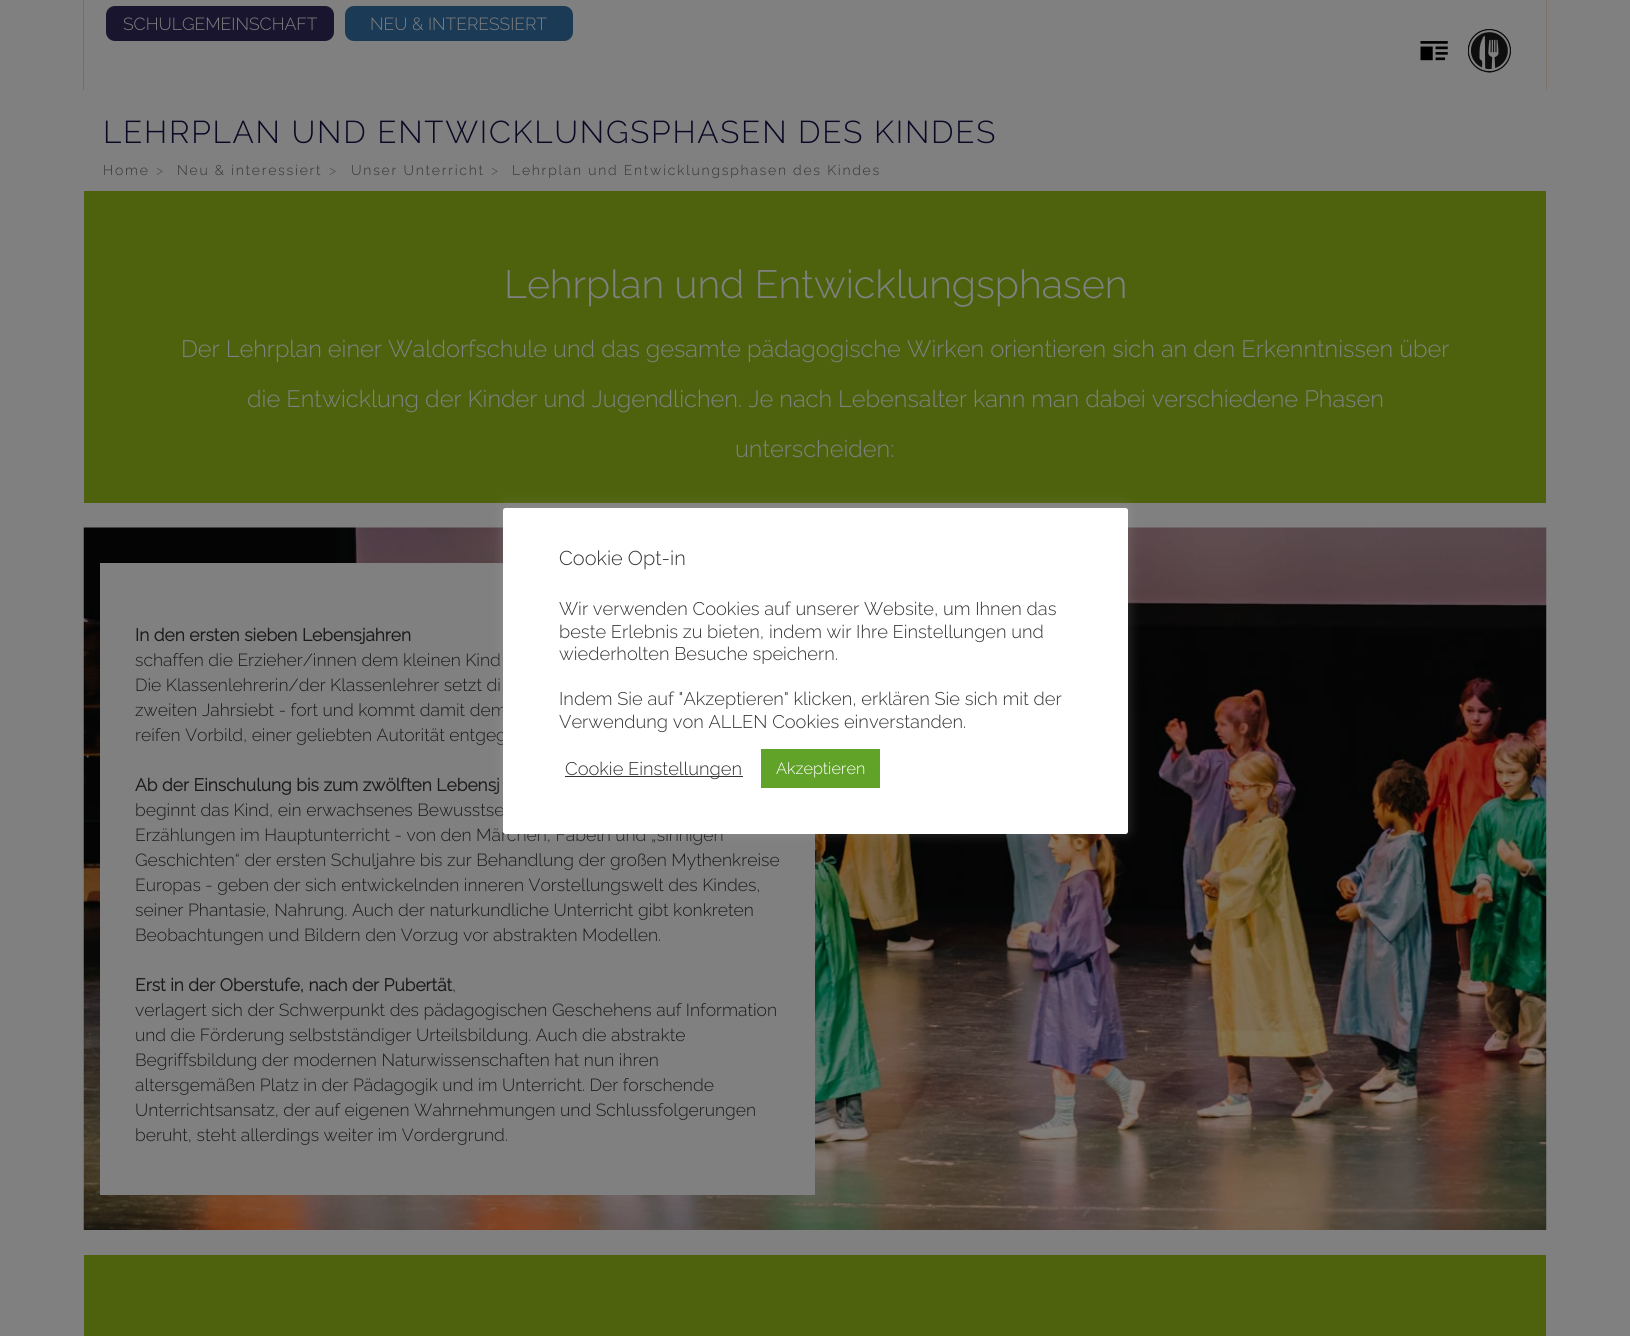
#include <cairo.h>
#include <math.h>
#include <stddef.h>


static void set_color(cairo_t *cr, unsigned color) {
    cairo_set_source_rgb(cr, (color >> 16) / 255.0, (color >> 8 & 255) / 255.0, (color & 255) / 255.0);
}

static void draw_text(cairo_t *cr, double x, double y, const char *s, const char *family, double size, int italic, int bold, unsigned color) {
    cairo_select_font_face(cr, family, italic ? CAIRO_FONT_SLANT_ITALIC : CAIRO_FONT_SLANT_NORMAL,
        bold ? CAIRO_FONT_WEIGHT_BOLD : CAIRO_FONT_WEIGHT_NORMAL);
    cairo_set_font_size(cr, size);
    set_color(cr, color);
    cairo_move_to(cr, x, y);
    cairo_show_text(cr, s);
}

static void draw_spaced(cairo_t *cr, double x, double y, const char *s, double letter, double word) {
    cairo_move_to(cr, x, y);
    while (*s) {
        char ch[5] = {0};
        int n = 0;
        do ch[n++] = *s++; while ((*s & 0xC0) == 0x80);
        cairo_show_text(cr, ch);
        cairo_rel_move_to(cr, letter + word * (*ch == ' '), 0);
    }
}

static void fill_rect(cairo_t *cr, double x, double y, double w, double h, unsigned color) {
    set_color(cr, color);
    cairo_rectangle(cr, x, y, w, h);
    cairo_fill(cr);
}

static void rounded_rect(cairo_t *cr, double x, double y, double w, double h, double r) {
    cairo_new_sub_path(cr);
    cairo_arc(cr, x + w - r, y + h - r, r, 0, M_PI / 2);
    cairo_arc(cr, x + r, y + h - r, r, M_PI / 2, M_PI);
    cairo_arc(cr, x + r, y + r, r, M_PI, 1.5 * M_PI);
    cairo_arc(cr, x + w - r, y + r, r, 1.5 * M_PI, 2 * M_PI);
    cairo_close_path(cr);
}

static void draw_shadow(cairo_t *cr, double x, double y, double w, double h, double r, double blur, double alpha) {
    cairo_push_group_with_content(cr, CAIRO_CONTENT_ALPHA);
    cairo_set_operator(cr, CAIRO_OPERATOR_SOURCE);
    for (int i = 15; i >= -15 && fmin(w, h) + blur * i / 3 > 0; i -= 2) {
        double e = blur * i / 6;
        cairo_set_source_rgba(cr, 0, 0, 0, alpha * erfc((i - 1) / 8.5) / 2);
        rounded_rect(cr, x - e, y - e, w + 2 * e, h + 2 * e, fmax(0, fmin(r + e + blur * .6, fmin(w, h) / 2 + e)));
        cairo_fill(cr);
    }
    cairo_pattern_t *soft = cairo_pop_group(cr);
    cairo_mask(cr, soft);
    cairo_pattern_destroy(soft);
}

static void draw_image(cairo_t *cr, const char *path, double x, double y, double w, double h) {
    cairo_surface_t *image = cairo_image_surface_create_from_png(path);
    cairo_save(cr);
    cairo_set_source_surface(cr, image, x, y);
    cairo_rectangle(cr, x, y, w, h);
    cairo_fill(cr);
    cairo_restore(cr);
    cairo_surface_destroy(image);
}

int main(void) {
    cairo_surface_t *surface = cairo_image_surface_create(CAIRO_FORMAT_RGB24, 1630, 1336);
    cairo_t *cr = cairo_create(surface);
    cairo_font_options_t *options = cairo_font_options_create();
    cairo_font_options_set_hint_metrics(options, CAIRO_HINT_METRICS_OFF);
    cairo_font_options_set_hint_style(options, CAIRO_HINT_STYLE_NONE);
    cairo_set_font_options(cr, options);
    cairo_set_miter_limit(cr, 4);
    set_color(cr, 0x808080);
    cairo_paint(cr);
    draw_image(cr, "assets/img1.png", 83, 0, 1464, 90);
    set_color(cr, 0x808080);
    cairo_new_path(cr);
    cairo_move_to(cr, 84, 2);
    cairo_curve_to(cr, 571, -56, 1059, -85, 1546, -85);
    cairo_line_to(cr, 1546, 90);
    cairo_line_to(cr, 84, 90);
    cairo_fill(cr);
    cairo_save(cr);
    cairo_rectangle(cr, 84, 0, 1462, 90);
    cairo_clip(cr);
    cairo_new_path(cr);
    cairo_move_to(cr, 84, 2.5);
    cairo_curve_to(cr, 571, -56, 1059, -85, 1546, -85);
    cairo_line_to(cr, 1546, 90);
    cairo_line_to(cr, 84, 90);
    cairo_set_line_width(cr, 5.1);
    cairo_stroke(cr);
    cairo_restore(cr);
    set_color(cr, 0x19152E);
    rounded_rect(cr, 106, 6, 228, 35, 9);
    cairo_fill(cr);
    draw_text(cr, 123, 30, "SCHULGEMEINSCHAFT", "Raleway Thin", 17.5, 0, 0, 0x808080);
    set_color(cr, 0x1B3A56);
    rounded_rect(cr, 345, 6, 228, 35, 9);
    cairo_fill(cr);
    draw_text(cr, 370, 30, "NEU & INTERESSIERT", "Raleway Thin", 17.5, 0, 0, 0x808080);
    draw_image(cr, "assets/img2.png", 1420, 41, 28, 20);
    draw_image(cr, "assets/img3.png", 1468, 29, 43, 44);
    cairo_set_font_size(cr, 31.5);
    set_color(cr, 0x090825);
    draw_spaced(cr, 103, 143, "LEHRPLAN UND ENTWICKLUNGSPHASEN DES KINDES", 1.75, 0);
    cairo_set_font_size(cr, 14);
    set_color(cr, 0x333333);
    draw_spaced(cr, 103, 175, "Home", 1.75, 0);
    set_color(cr, 0x4D4D4D);
    draw_spaced(cr, 156, 175, ">", 1.75, 0);
    set_color(cr, 0x333333);
    draw_spaced(cr, 177, 175, "Neu & interessiert", 1.75, 0);
    set_color(cr, 0x4D4D4D);
    draw_spaced(cr, 329, 175, ">", 1.75, 0);
    set_color(cr, 0x333333);
    draw_spaced(cr, 351, 175, "Unser Unterricht", 1.75, 0);
    set_color(cr, 0x4D4D4D);
    draw_spaced(cr, 491, 175, ">", 1.75, 0);
    set_color(cr, 0x333333);
    draw_spaced(cr, 512, 175, "Lehrplan und Entwicklungsphasen des Kindes", 1.75, 0);
    fill_rect(cr, 84, 191, 1462, 312, 0x4E620D);
    draw_text(cr, 504, 298, "Lehrplan und Entwicklungsphasen", "Raleway Thin", 39.4, 0, 0, 0x808080);
    draw_text(cr, 181, 357, "Der Lehrplan einer Waldorfschule und das gesamte pädagogische Wirken orientieren sich an den Erkenntnissen über", "Raleway Thin", 23.62, 0, 0, 0x808080);
    draw_text(cr, 247, 407, "die Entwicklung der Kinder und Jugendlichen. Je nach Lebensalter kann man dabei verschiedene Phasen", "Raleway Thin", 23.62, 0, 0, 0x808080);
    draw_text(cr, 735, 457, "unterscheiden:", "Raleway Thin", 23.62, 0, 0, 0x808080);
    draw_image(cr, "assets/img4.png", 83, 527, 1464, 703);
    fill_rect(cr, 100, 563, 715, 632, 0x808080);
    draw_text(cr, 135, 641, "In den ersten sieben Lebensjahren", "Raleway", 17.5, 0, 1, 0x1A1A1A);
    draw_text(cr, 135, 666, "schaffen die Erzieher/innen dem kleinen Kind", "Raleway Thin", 17.5, 0, 0, 0x1A1A1A);
    draw_text(cr, 135, 691, "Die Klassenlehrerin/der Klassenlehrer setzt di", "Raleway Thin", 17.5, 0, 0, 0x1A1A1A);
    draw_text(cr, 135, 716, "zweiten Jahrsiebt - fort und kommt damit dem", "Raleway Thin", 17.5, 0, 0, 0x1A1A1A);
    draw_text(cr, 135, 741, "reifen Vorbild, einer geliebten Autorität entgeg", "Raleway Thin", 17.5, 0, 0, 0x1A1A1A);
    draw_text(cr, 135, 791, "Ab der Einschulung bis zum zwölften Lebensj", "Raleway", 17.5, 0, 1, 0x1A1A1A);
    draw_text(cr, 135, 816, "beginnt das Kind, ein erwachsenes Bewusstse", "Raleway Thin", 17.5, 0, 0, 0x1A1A1A);
    draw_text(cr, 135, 841, "Erzählungen im Hauptunterricht - von den Märchen, Fabeln und „sinnigen", "Raleway Thin", 17.5, 0, 0, 0x1A1A1A);
    draw_text(cr, 135, 866, "Geschichten“ der ersten Schuljahre bis zur Behandlung der großen Mythenkreise", "Raleway Thin", 17.5, 0, 0, 0x1A1A1A);
    draw_text(cr, 135, 891, "Europas - geben der sich entwickelnden inneren Vorstellungswelt des Kindes,", "Raleway Thin", 17.5, 0, 0, 0x1A1A1A);
    draw_text(cr, 135, 916, "seiner Phantasie, Nahrung. Auch der naturkundliche Unterricht gibt konkreten", "Raleway Thin", 17.5, 0, 0, 0x1A1A1A);
    draw_text(cr, 135, 941, "Beobachtungen und Bildern den Vorzug vor abstrakten Modellen.", "Raleway Thin", 17.5, 0, 0, 0x1A1A1A);
    draw_text(cr, 135, 991, "Erst in der Oberstufe, nach der Pubertät", "Raleway", 17.5, 0, 1, 0x1A1A1A);
    draw_text(cr, 452, 991, ",", "Raleway Thin", 17.5, 0, 0, 0x1A1A1A);
    draw_text(cr, 135, 1016, "verlagert sich der Schwerpunkt des pädagogischen Geschehens auf Information", "Raleway Thin", 17.5, 0, 0, 0x1A1A1A);
    draw_text(cr, 135, 1041, "und die Förderung selbstständiger Urteilsbildung. Auch die abstrakte", "Raleway Thin", 17.5, 0, 0, 0x1A1A1A);
    draw_text(cr, 135, 1066, "Begriffsbildung der modernen Naturwissenschaften hat nun ihren", "Raleway Thin", 17.5, 0, 0, 0x1A1A1A);
    draw_text(cr, 135, 1091, "altersgemäßen Platz in der Pädagogik und im Unterricht. Der forschende", "Raleway Thin", 17.5, 0, 0, 0x1A1A1A);
    draw_text(cr, 135, 1116, "Unterrichtsansatz, der auf eigenen Wahrnehmungen und Schlussfolgerungen", "Raleway Thin", 17.5, 0, 0, 0x1A1A1A);
    draw_text(cr, 135, 1141, "beruht, steht allerdings weiter im Vordergrund.", "Raleway Thin", 17.5, 0, 0, 0x1A1A1A);
    set_color(cr, 0xACABAB);
    draw_shadow(cr, 503, 506, 625, 327, 2.5, 6, 0.3);
    set_color(cr, 0xFFFFFF);
    rounded_rect(cr, 503, 508, 625, 326, 2.5);
    cairo_fill(cr);
    draw_text(cr, 559, 565, "Cookie Opt-in", "Raleway Thin", 20, 0, 0, 0x333333);
    draw_text(cr, 559, 615, "Wir verwenden Cookies auf unserer Website, um Ihnen das", "Raleway Thin", 18.3, 0, 0, 0x333333);
    draw_text(cr, 559, 638, "beste Erlebnis zu bieten, indem wir Ihre Einstellungen und", "Raleway Thin", 18.3, 0, 0, 0x333333);
    draw_text(cr, 559, 660, "wiederholten Besuche speichern.", "Raleway Thin", 18.3, 0, 0, 0x333333);
    draw_text(cr, 559, 705, "Indem Sie auf \"Akzeptieren\" klicken, erklären Sie sich mit der", "Raleway Thin", 18.3, 0, 0, 0x333333);
    draw_text(cr, 559, 728, "Verwendung von ALLEN Cookies einverstanden.", "Raleway Thin", 18.3, 0, 0, 0x333333);
    fill_rect(cr, 565, 776, 178, 1, 0x333333);
    draw_text(cr, 565, 775, "Cookie Einstellungen", "Raleway Thin", 18.3, 0, 0, 0x333333);
    fill_rect(cr, 761, 749, 119, 39, 0x61A229);
    draw_text(cr, 776, 774, "Akzeptieren", "Raleway Thin", 16.25, 0, 0, 0xFFFFFF);
    fill_rect(cr, 84, 1255, 1462, 81, 0x4E620D);
    cairo_surface_write_to_png(surface, "output.png");
    cairo_font_options_destroy(options);
    cairo_destroy(cr);
    cairo_surface_destroy(surface);
    return 0;
}
